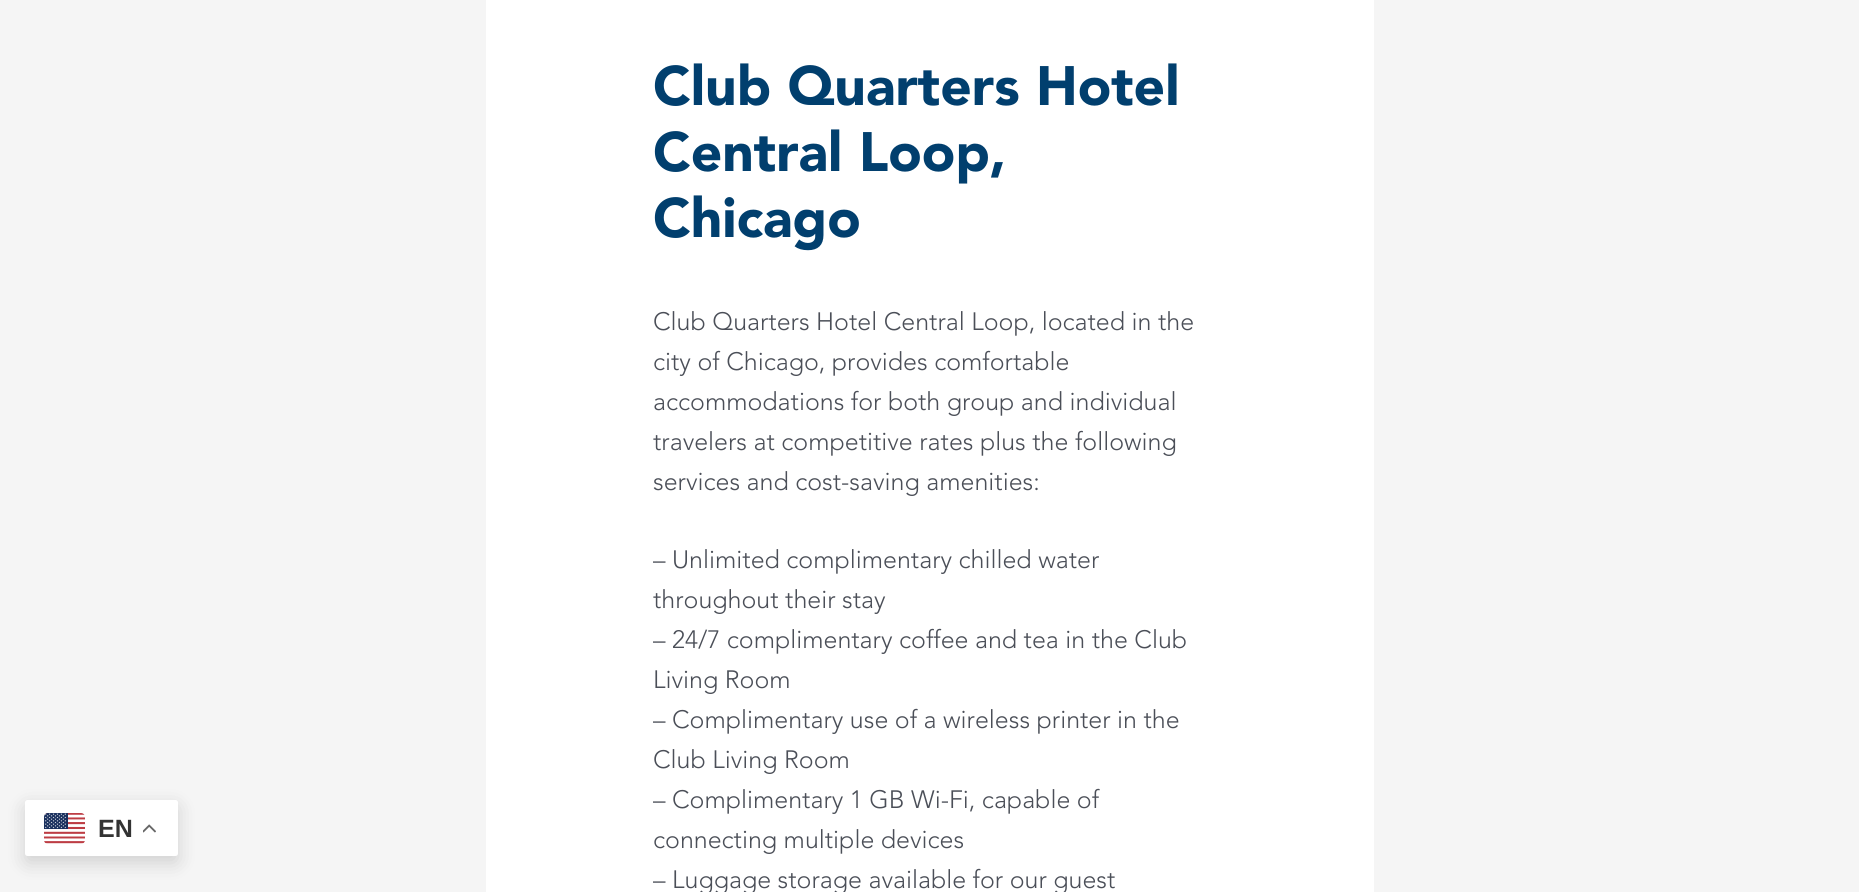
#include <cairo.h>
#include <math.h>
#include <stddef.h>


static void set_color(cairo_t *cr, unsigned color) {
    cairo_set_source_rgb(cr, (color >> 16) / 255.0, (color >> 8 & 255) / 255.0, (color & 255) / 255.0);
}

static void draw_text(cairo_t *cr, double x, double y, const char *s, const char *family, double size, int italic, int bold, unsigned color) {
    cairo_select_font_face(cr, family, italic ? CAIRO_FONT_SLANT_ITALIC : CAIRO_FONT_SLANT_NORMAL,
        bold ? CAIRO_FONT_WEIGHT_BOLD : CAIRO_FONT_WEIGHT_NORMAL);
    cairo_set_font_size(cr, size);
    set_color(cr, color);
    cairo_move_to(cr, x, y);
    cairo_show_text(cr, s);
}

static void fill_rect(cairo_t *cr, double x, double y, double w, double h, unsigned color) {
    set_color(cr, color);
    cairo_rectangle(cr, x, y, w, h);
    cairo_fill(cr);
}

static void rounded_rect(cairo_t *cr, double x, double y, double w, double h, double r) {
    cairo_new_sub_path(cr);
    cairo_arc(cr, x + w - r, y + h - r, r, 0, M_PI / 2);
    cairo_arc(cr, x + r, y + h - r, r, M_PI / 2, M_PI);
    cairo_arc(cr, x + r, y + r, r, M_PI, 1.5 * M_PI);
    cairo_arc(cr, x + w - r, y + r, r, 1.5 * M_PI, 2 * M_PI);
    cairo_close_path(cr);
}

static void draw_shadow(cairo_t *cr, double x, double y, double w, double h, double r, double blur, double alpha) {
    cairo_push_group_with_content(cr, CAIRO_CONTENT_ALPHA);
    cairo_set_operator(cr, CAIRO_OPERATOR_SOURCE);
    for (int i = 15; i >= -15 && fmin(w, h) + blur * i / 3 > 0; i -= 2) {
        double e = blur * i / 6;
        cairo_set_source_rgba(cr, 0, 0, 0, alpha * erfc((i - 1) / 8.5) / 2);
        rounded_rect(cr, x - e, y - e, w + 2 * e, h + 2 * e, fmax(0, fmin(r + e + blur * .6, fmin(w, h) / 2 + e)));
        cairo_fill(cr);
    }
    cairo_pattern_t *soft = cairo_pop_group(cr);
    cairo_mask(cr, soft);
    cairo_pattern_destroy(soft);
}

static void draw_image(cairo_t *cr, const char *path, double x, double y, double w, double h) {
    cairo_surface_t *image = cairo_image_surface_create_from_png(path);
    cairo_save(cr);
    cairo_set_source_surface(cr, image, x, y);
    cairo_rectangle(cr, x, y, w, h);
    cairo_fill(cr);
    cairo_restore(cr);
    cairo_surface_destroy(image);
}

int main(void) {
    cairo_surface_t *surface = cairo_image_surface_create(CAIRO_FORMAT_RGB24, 1859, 892);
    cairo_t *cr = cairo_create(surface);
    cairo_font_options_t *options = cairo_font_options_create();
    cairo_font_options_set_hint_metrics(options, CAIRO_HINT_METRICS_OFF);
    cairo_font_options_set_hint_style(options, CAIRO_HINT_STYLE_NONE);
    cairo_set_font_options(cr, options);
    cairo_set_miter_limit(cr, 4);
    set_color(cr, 0xF5F5F5);
    cairo_paint(cr);
    set_color(cr, 0x000000);
    draw_shadow(cr, 25, 806, 153, 57, 2.5, 9.5, 0.15);
    set_color(cr, 0xFFFFFF);
    rounded_rect(cr, 25, 800, 153, 56, 2.5);
    cairo_fill(cr);
    draw_image(cr, "assets/img1.png", 44, 813, 41, 31);
    draw_text(cr, 98, 837, "EN", "Liberation Sans", 25, 0, 1, 0x333333);
    draw_image(cr, "assets/img2.png", 143, 824, 13, 9);
    fill_rect(cr, 486, 0, 888, 892, 0xFFFFFF);
    draw_text(cr, 653, 105, "Club Quarters Hotel", "Avenir Black", 55, 0, 0, 0x013F6E);
    draw_text(cr, 653, 171, "Central Loop,", "Avenir Black", 55, 0, 0, 0x013F6E);
    draw_text(cr, 653, 237, "Chicago", "Avenir Black", 55, 0, 0, 0x013F6E);
    draw_text(cr, 653, 330, "Club Quarters Hotel Central Loop, located in the", "Avenir Light", 25, 0, 0, 0x4B4F58);
    draw_text(cr, 653, 370, "city of Chicago, provides comfortable", "Avenir Light", 25, 0, 0, 0x4B4F58);
    draw_text(cr, 653, 410, "accommodations for both group and individual", "Avenir Light", 25, 0, 0, 0x4B4F58);
    draw_text(cr, 653, 450, "travelers at competitive rates plus the following", "Avenir Light", 25, 0, 0, 0x4B4F58);
    draw_text(cr, 653, 490, "services and cost-saving amenities:", "Avenir Light", 25, 0, 0, 0x4B4F58);
    draw_text(cr, 653, 568, "– Unlimited complimentary chilled water", "Avenir Light", 25, 0, 0, 0x4B4F58);
    draw_text(cr, 653, 608, "throughout their stay", "Avenir Light", 25, 0, 0, 0x4B4F58);
    draw_text(cr, 653, 648, "– 24/7 complimentary coffee and tea in the Club", "Avenir Light", 25, 0, 0, 0x4B4F58);
    draw_text(cr, 653, 688, "Living Room", "Avenir Light", 25, 0, 0, 0x4B4F58);
    draw_text(cr, 653, 728, "– Complimentary use of a wireless printer in the", "Avenir Light", 25, 0, 0, 0x4B4F58);
    draw_text(cr, 653, 768, "Club Living Room", "Avenir Light", 25, 0, 0, 0x4B4F58);
    draw_text(cr, 653, 808, "– Complimentary 1 GB Wi-Fi, capable of", "Avenir Light", 25, 0, 0, 0x4B4F58);
    draw_text(cr, 653, 848, "connecting multiple devices", "Avenir Light", 25, 0, 0, 0x4B4F58);
    draw_text(cr, 653, 888, "– Luggage storage available for our guest", "Avenir Light", 25, 0, 0, 0x4B4F58);
    cairo_surface_write_to_png(surface, "output.png");
    cairo_font_options_destroy(options);
    cairo_destroy(cr);
    cairo_surface_destroy(surface);
    return 0;
}
